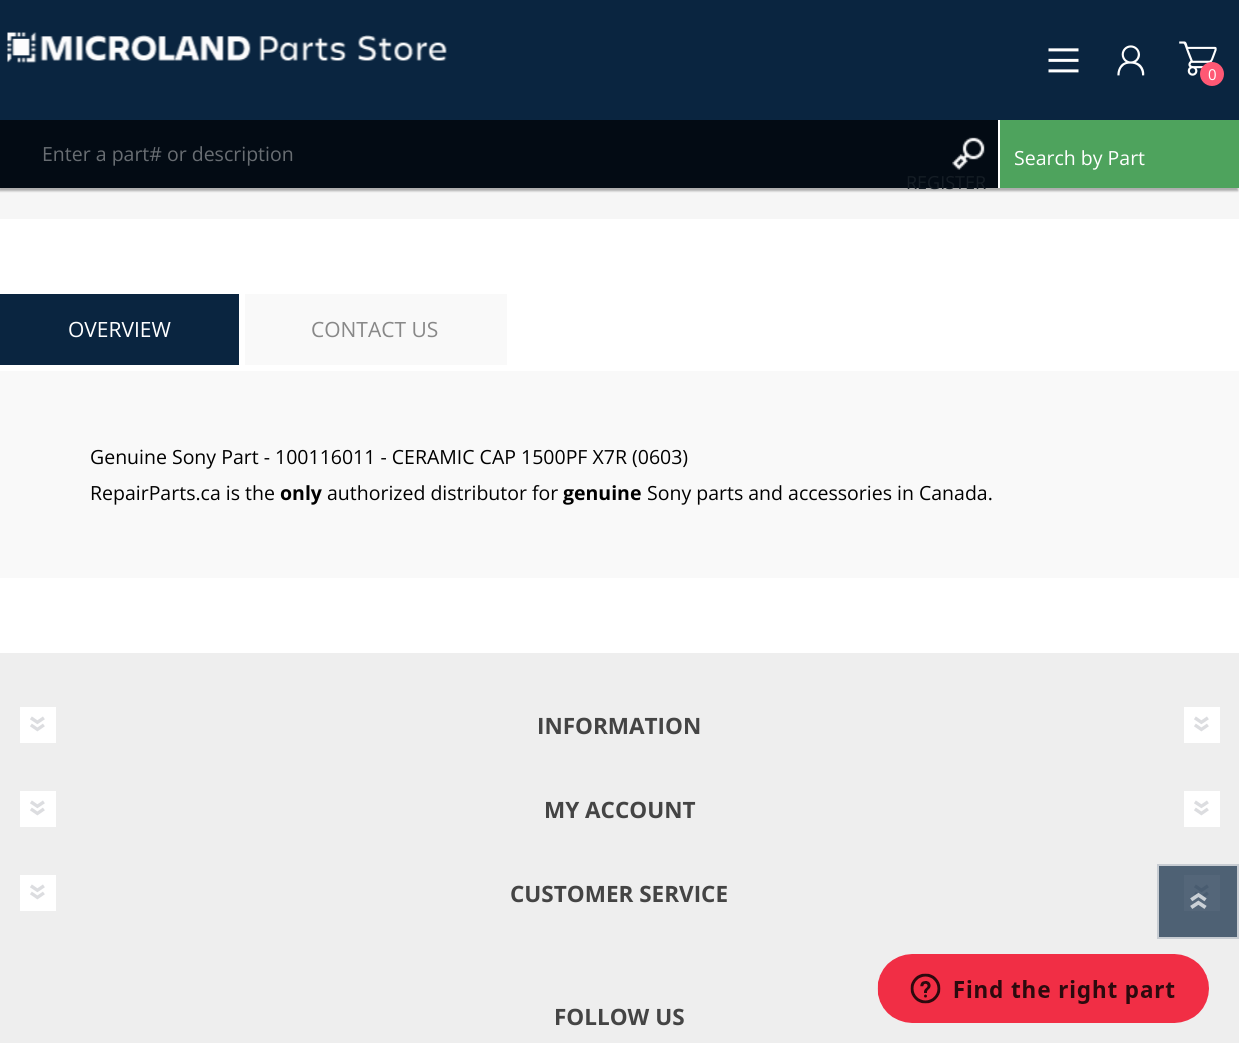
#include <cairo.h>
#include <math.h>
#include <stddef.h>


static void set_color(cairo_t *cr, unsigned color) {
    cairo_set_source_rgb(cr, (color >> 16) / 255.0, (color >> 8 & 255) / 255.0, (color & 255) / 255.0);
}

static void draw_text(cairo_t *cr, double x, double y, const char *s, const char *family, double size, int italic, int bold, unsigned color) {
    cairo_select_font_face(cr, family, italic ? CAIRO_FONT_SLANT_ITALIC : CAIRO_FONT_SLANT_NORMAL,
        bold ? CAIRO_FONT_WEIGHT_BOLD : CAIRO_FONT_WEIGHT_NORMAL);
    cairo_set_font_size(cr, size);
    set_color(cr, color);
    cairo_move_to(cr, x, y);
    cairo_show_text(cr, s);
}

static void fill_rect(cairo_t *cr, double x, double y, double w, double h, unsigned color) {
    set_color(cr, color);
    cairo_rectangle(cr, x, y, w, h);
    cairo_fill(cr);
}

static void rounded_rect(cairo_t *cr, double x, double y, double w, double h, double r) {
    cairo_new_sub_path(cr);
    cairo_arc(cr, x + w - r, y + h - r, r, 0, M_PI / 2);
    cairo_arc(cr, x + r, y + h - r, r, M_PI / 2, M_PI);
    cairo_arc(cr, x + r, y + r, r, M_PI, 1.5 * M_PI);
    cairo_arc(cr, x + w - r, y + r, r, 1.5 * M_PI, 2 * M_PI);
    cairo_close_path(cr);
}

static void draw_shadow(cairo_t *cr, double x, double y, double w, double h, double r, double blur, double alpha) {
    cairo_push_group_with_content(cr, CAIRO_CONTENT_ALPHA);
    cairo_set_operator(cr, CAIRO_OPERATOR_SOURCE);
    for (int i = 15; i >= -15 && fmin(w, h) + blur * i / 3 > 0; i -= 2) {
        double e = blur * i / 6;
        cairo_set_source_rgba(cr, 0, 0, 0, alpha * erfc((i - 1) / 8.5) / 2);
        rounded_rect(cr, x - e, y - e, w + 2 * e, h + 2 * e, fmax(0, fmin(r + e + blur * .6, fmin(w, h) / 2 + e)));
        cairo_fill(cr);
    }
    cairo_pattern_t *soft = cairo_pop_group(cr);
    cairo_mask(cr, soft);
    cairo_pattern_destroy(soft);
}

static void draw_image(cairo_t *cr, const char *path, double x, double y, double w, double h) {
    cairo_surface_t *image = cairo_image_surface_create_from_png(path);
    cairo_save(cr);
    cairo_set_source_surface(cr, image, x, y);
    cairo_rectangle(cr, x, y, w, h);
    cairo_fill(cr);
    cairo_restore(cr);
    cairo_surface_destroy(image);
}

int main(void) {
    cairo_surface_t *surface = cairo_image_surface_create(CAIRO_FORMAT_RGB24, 1239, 1043);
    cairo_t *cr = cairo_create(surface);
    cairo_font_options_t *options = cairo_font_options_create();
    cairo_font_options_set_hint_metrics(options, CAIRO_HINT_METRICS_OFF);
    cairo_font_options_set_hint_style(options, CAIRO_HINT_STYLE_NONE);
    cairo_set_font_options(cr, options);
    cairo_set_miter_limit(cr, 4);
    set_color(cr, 0xFFFFFF);
    cairo_paint(cr);
    fill_rect(cr, 0, 0, 1239, 120, 0x0A2540);
    draw_image(cr, "assets/img1.png", 1048, 48, 31, 25);
    draw_image(cr, "assets/img2.png", 1179, 41, 38, 35);
    set_color(cr, 0xFF5874);
    cairo_arc(cr, 1212, 74, 12, 0, 2 * M_PI);
    cairo_fill(cr);
    draw_text(cr, 1208, 80, "0", "Open Sans", 15, 0, 0, 0xFFFFFF);
    draw_image(cr, "assets/img3.png", 1117, 45, 28, 31);
    fill_rect(cr, 0, 188, 1239, 31, 0xF6F6F6);
    set_color(cr, 0x000000);
    draw_shadow(cr, -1, 123, 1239, 68, 0, 1, 0.3);
    fill_rect(cr, 0, 120, 998, 68, 0x030B14);
    draw_text(cr, 906, 189, "REGISTER", "Open Sans", 18, 0, 0, 0x151D25);
    draw_image(cr, "assets/img4.png", 7, 32, 440, 31);
    draw_text(cr, 42, 161, "Enter a part# or description", "Open Sans", 19.5, 0, 0, 0x686D72);
    draw_image(cr, "assets/img5.png", 952, 137, 33, 33);
    fill_rect(cr, 1000, 120, 239, 68, 0x4EA35D);
    fill_rect(cr, 998, 120, 2, 68, 0xFFFFFF);
    draw_text(cr, 1014, 165, "Search by Part", "Open Sans", 19.5, 0, 0, 0xFFFFFF);
    fill_rect(cr, 0, 294, 239, 71, 0x0A2540);
    draw_text(cr, 68, 337, "OVERVIEW", "Open Sans", 21, 0, 0, 0xFFFFFF);
    fill_rect(cr, 245, 294, 262, 71, 0xF9F9F9);
    draw_text(cr, 311, 337, "CONTACT US", "Open Sans", 21, 0, 0, 0x888888);
    fill_rect(cr, 0, 371, 1239, 207, 0xF9F9F9);
    draw_text(cr, 90, 464, "Genuine Sony Part - 100116011 - CERAMIC CAP 1500PF X7R (0603)", "Open Sans", 19.5, 0, 0, 0x000000);
    draw_text(cr, 90, 500, "RepairParts.ca is the", "Open Sans", 19.5, 0, 0, 0x000000);
    draw_text(cr, 280, 500, "only", "Open Sans", 19.5, 0, 1, 0x000000);
    draw_text(cr, 327, 500, "authorized distributor for", "Open Sans", 19.5, 0, 0, 0x000000);
    draw_text(cr, 563, 500, "genuine", "Open Sans", 19.5, 0, 1, 0x000000);
    draw_text(cr, 647, 500, "Sony parts and accessories in Canada.", "Open Sans", 19.5, 0, 0, 0x000000);
    fill_rect(cr, 0, 653, 1239, 390, 0xEEEEEE);
    fill_rect(cr, 1159, 866, 78, 71, 0x4E6174);
    fill_rect(cr, 20, 707, 36, 36, 0xFFFFFF);
    draw_image(cr, "assets/img6.png", 30, 716, 15, 16);
    draw_text(cr, 537, 734, "INFORMATION", "Open Sans", 22.5, 0, 1, 0x444444);
    fill_rect(cr, 1184, 707, 36, 36, 0xFFFFFF);
    draw_image(cr, "assets/img6.png", 1194, 716, 15, 16);
    fill_rect(cr, 20, 791, 36, 36, 0xFFFFFF);
    draw_image(cr, "assets/img6.png", 30, 800, 15, 16);
    draw_text(cr, 544, 818, "MY ACCOUNT", "Open Sans", 22.5, 0, 1, 0x444444);
    fill_rect(cr, 1184, 791, 36, 36, 0xFFFFFF);
    draw_image(cr, "assets/img6.png", 1194, 800, 15, 16);
    fill_rect(cr, 20, 875, 36, 36, 0xFFFFFF);
    draw_image(cr, "assets/img6.png", 30, 884, 15, 16);
    draw_text(cr, 510, 902, "CUSTOMER SERVICE", "Open Sans", 22.5, 0, 1, 0x444444);
    fill_rect(cr, 1184, 875, 36, 36, 0x546679);
    draw_image(cr, "assets/img7.png", 1194, 884, 15, 16);
    draw_text(cr, 554, 1025, "FOLLOW US", "Open Sans", 22.5, 0, 1, 0x444444);
    cairo_rectangle(cr, 1158, 865, 80, 73);
    set_color(cr, 0xC7CCD2);
    cairo_stroke(cr);
    draw_image(cr, "assets/img8.png", 1190, 892, 17, 17);
    draw_image(cr, "assets/img9.png", 877, 954, 332, 69);
    cairo_surface_write_to_png(surface, "output.png");
    cairo_font_options_destroy(options);
    cairo_destroy(cr);
    cairo_surface_destroy(surface);
    return 0;
}
